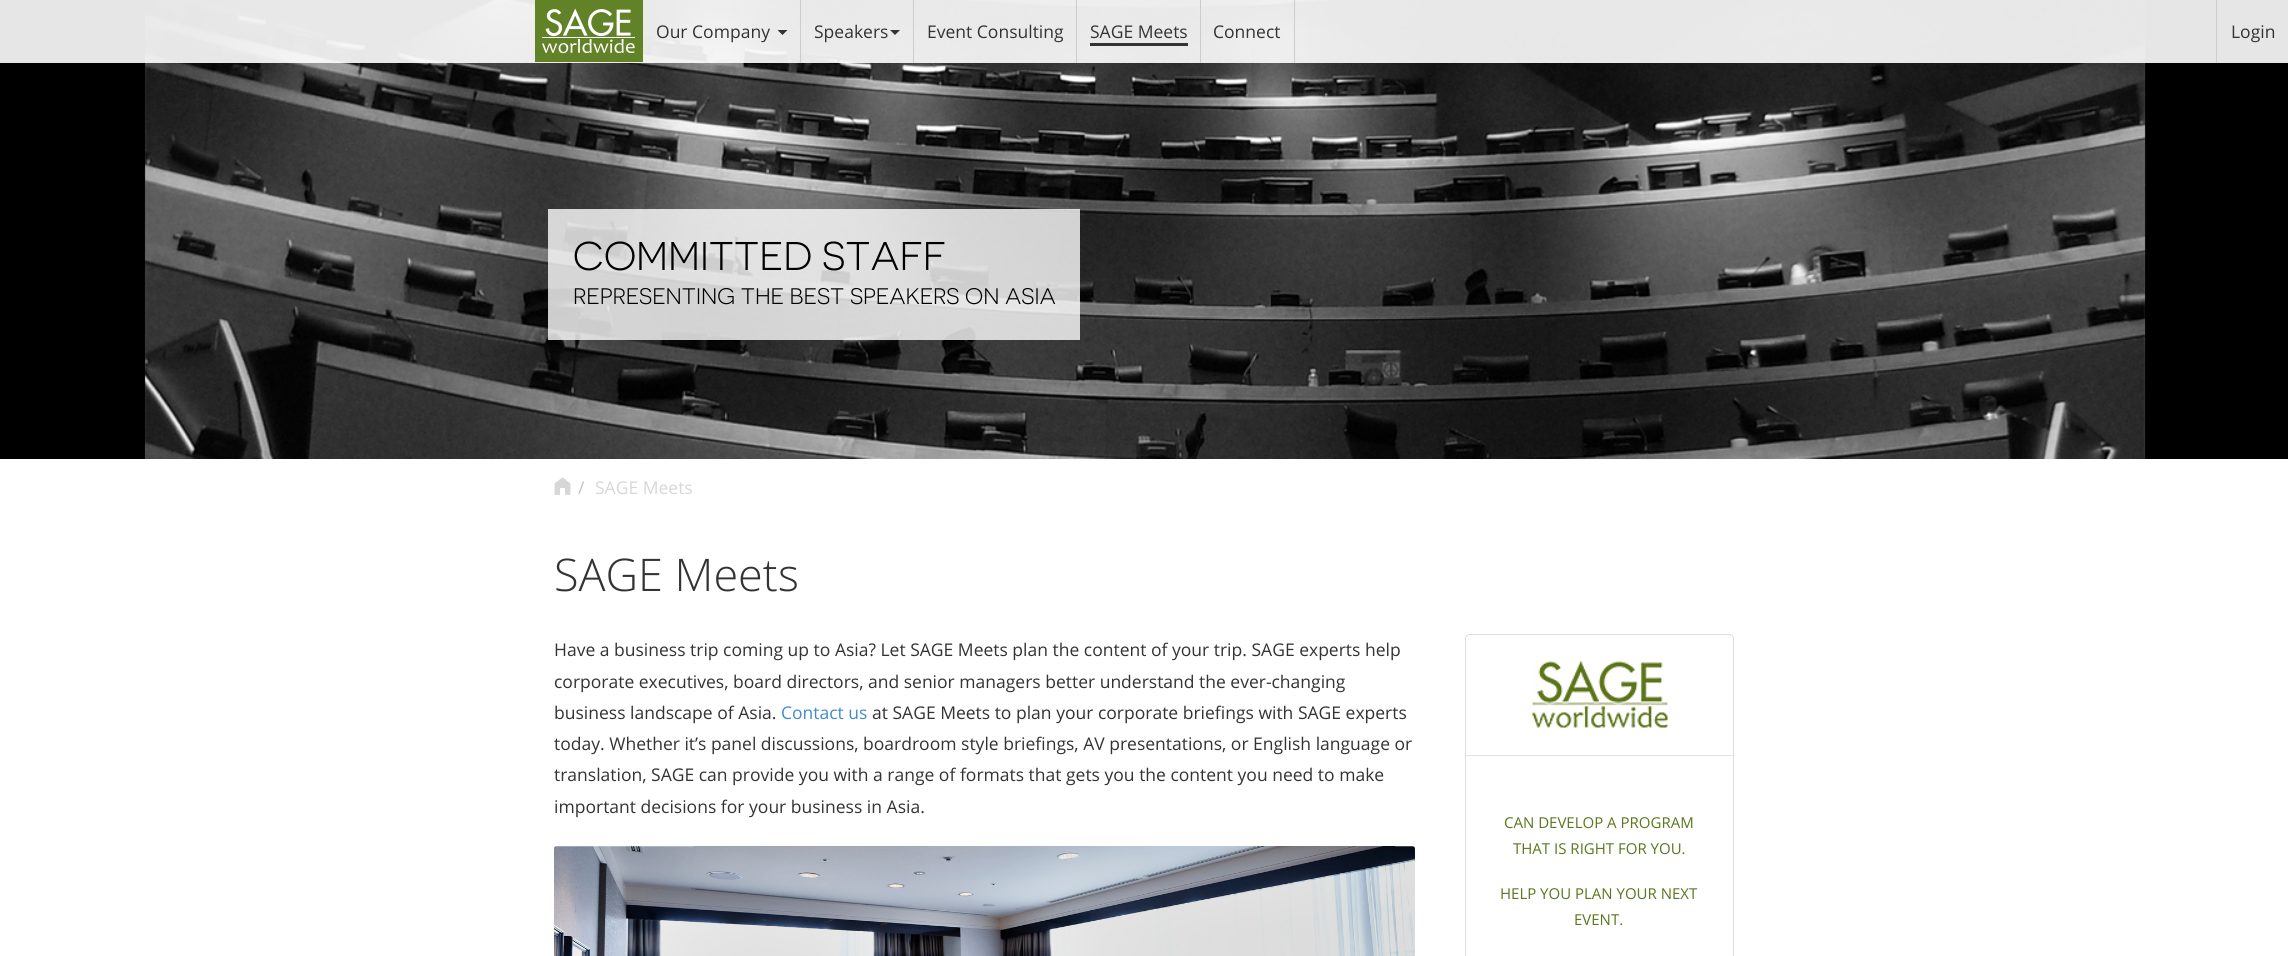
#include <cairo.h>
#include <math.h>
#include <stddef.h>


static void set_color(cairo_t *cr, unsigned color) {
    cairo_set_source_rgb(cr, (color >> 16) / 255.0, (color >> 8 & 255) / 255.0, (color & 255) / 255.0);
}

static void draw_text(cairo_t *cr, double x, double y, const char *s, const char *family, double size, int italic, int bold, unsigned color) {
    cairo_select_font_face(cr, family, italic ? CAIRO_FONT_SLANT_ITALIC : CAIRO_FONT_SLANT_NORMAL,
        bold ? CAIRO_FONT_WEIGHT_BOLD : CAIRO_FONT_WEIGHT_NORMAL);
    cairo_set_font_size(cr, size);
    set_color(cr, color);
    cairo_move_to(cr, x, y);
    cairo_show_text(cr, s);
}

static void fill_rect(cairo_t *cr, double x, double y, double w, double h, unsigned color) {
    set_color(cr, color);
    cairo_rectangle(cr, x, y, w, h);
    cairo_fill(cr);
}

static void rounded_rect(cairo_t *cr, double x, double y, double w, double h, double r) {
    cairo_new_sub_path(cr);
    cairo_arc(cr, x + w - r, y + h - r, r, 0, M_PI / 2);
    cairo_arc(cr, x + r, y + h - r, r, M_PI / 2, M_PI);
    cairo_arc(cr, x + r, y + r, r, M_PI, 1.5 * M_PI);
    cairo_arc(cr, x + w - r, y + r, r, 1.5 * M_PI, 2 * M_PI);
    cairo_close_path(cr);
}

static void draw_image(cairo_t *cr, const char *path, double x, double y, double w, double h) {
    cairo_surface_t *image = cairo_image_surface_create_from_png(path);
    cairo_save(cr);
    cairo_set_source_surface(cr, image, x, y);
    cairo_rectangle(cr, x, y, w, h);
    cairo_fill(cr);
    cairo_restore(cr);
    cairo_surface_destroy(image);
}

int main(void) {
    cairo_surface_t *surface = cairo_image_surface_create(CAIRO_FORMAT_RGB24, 2288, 956);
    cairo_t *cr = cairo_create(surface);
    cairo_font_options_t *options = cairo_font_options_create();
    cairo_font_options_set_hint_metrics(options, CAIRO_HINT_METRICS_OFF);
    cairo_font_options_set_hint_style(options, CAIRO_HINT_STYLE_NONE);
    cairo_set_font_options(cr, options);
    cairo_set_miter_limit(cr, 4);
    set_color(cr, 0xFFFFFF);
    cairo_paint(cr);
    fill_rect(cr, 0, 0, 2288, 459, 0x000000);
    draw_image(cr, "assets/img2.png", 144, 0, 2002, 459);
    cairo_set_source_rgba(cr, 1, 1, 1, 0.9);
    cairo_rectangle(cr, 0, 0, 2288, 63);
    cairo_fill(cr);
    draw_image(cr, "assets/img1.png", 535, 0, 108, 62);
    fill_rect(cr, 800, 0, 1, 63, 0xCCCCCC);
    draw_text(cr, 656, 38, "Our Company", "Open Sans", 17.5, 0, 0, 0x333333);
    cairo_new_path(cr);
    cairo_move_to(cr, 777.5, 30);
    cairo_line_to(cr, 787.5, 30);
    cairo_line_to(cr, 782.5, 35);
    cairo_close_path(cr);
    cairo_fill(cr);
    fill_rect(cr, 913, 0, 1, 63, 0xCCCCCC);
    draw_text(cr, 814, 38, "Speakers", "Open Sans", 17.5, 0, 0, 0x333333);
    cairo_new_path(cr);
    cairo_move_to(cr, 890, 30);
    cairo_line_to(cr, 900, 30);
    cairo_line_to(cr, 895, 35);
    cairo_close_path(cr);
    cairo_fill(cr);
    fill_rect(cr, 1076, 0, 1, 63, 0xCCCCCC);
    draw_text(cr, 927, 38, "Event Consulting", "Open Sans", 17.5, 0, 0, 0x333333);
    fill_rect(cr, 1200, 0, 1, 63, 0xCCCCCC);
    draw_text(cr, 1090, 38, "SAGE Meets", "Open Sans", 17.5, 0, 0, 0x333333);
    fill_rect(cr, 1090, 43, 98, 3, 0x333333);
    fill_rect(cr, 1294, 0, 1, 63, 0xCCCCCC);
    draw_text(cr, 1213, 38, "Connect", "Open Sans", 17.5, 0, 0, 0x333333);
    fill_rect(cr, 2216, 0, 1, 63, 0xCCCCCC);
    draw_text(cr, 2231, 38, "Login", "Open Sans", 17.5, 0, 0, 0x333333);
    cairo_set_source_rgba(cr, 1, 1, 1, 0.8);
    cairo_rectangle(cr, 548, 209, 532, 131);
    cairo_fill(cr);
    draw_text(cr, 573, 270, "COMMITTED STAFF", "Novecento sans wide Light", 40, 0, 0, 0x000000);
    draw_text(cr, 573, 304, "REPRESENTING THE BEST SPEAKERS ON ASIA", "Novecento sans wide Light", 22.5, 0, 0, 0x000000);
    draw_image(cr, "assets/img3.png", 554, 477, 17, 18);
    draw_text(cr, 578, 494, "/", "Open Sans", 17.5, 0, 0, 0xC4C4C4);
    draw_text(cr, 595, 494, "SAGE Meets", "Open Sans", 17.5, 0, 0, 0xD7D7D7);
    draw_text(cr, 554, 591, "SAGE Meets", "Open Sans Light", 45, 0, 0, 0x333333);
    draw_text(cr, 554, 656, "Have a business trip coming up to Asia? Let SAGE Meets plan the content of your trip. SAGE experts help", "Open Sans", 17.5, 0, 0, 0x333333);
    draw_text(cr, 554, 688, "corporate executives, board directors, and senior managers better understand the ever-changing", "Open Sans", 17.5, 0, 0, 0x333333);
    draw_text(cr, 554, 719, "business landscape of Asia.", "Open Sans", 17.5, 0, 0, 0x333333);
    draw_text(cr, 781, 719, "Contact us", "Open Sans", 17.5, 0, 0, 0x428BCA);
    draw_text(cr, 872, 719, "at SAGE Meets to plan your corporate briefings with SAGE experts", "Open Sans", 17.5, 0, 0, 0x333333);
    draw_text(cr, 554, 750, "today. Whether it’s panel discussions, boardroom style brieﬁngs, AV presentations, or English language or", "Open Sans", 17.5, 0, 0, 0x333333);
    draw_text(cr, 554, 781, "translation, SAGE can provide you with a range of formats that gets you the content you need to make", "Open Sans", 17.5, 0, 0, 0x333333);
    draw_text(cr, 554, 813, "important decisions for your business in Asia.", "Open Sans", 17.5, 0, 0, 0x333333);
    draw_image(cr, "assets/img4.png", 554, 846, 861, 110);
    rounded_rect(cr, 1465.5, 634.5, 268, 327, 4.5);
    set_color(cr, 0xDDDDDD);
    cairo_set_line_width(cr, 1);
    cairo_stroke(cr);
    fill_rect(cr, 1466, 755, 267, 1, 0xE2E3E5);
    draw_image(cr, "assets/img5.png", 1532, 661, 136, 67);
    draw_text(cr, 1504, 828, "CAN DEVELOP A PROGRAM", "Open Sans", 15, 0, 0, 0x5B761D);
    draw_text(cr, 1513, 854, "THAT IS RIGHT FOR YOU.", "Open Sans", 15, 0, 0, 0x5B761D);
    draw_text(cr, 1500, 899, "HELP YOU PLAN YOUR NEXT", "Open Sans", 15, 0, 0, 0x5B761D);
    draw_text(cr, 1574, 925, "EVENT.", "Open Sans", 15, 0, 0, 0x5B761D);
    cairo_surface_write_to_png(surface, "output.png");
    cairo_font_options_destroy(options);
    cairo_destroy(cr);
    cairo_surface_destroy(surface);
    return 0;
}
